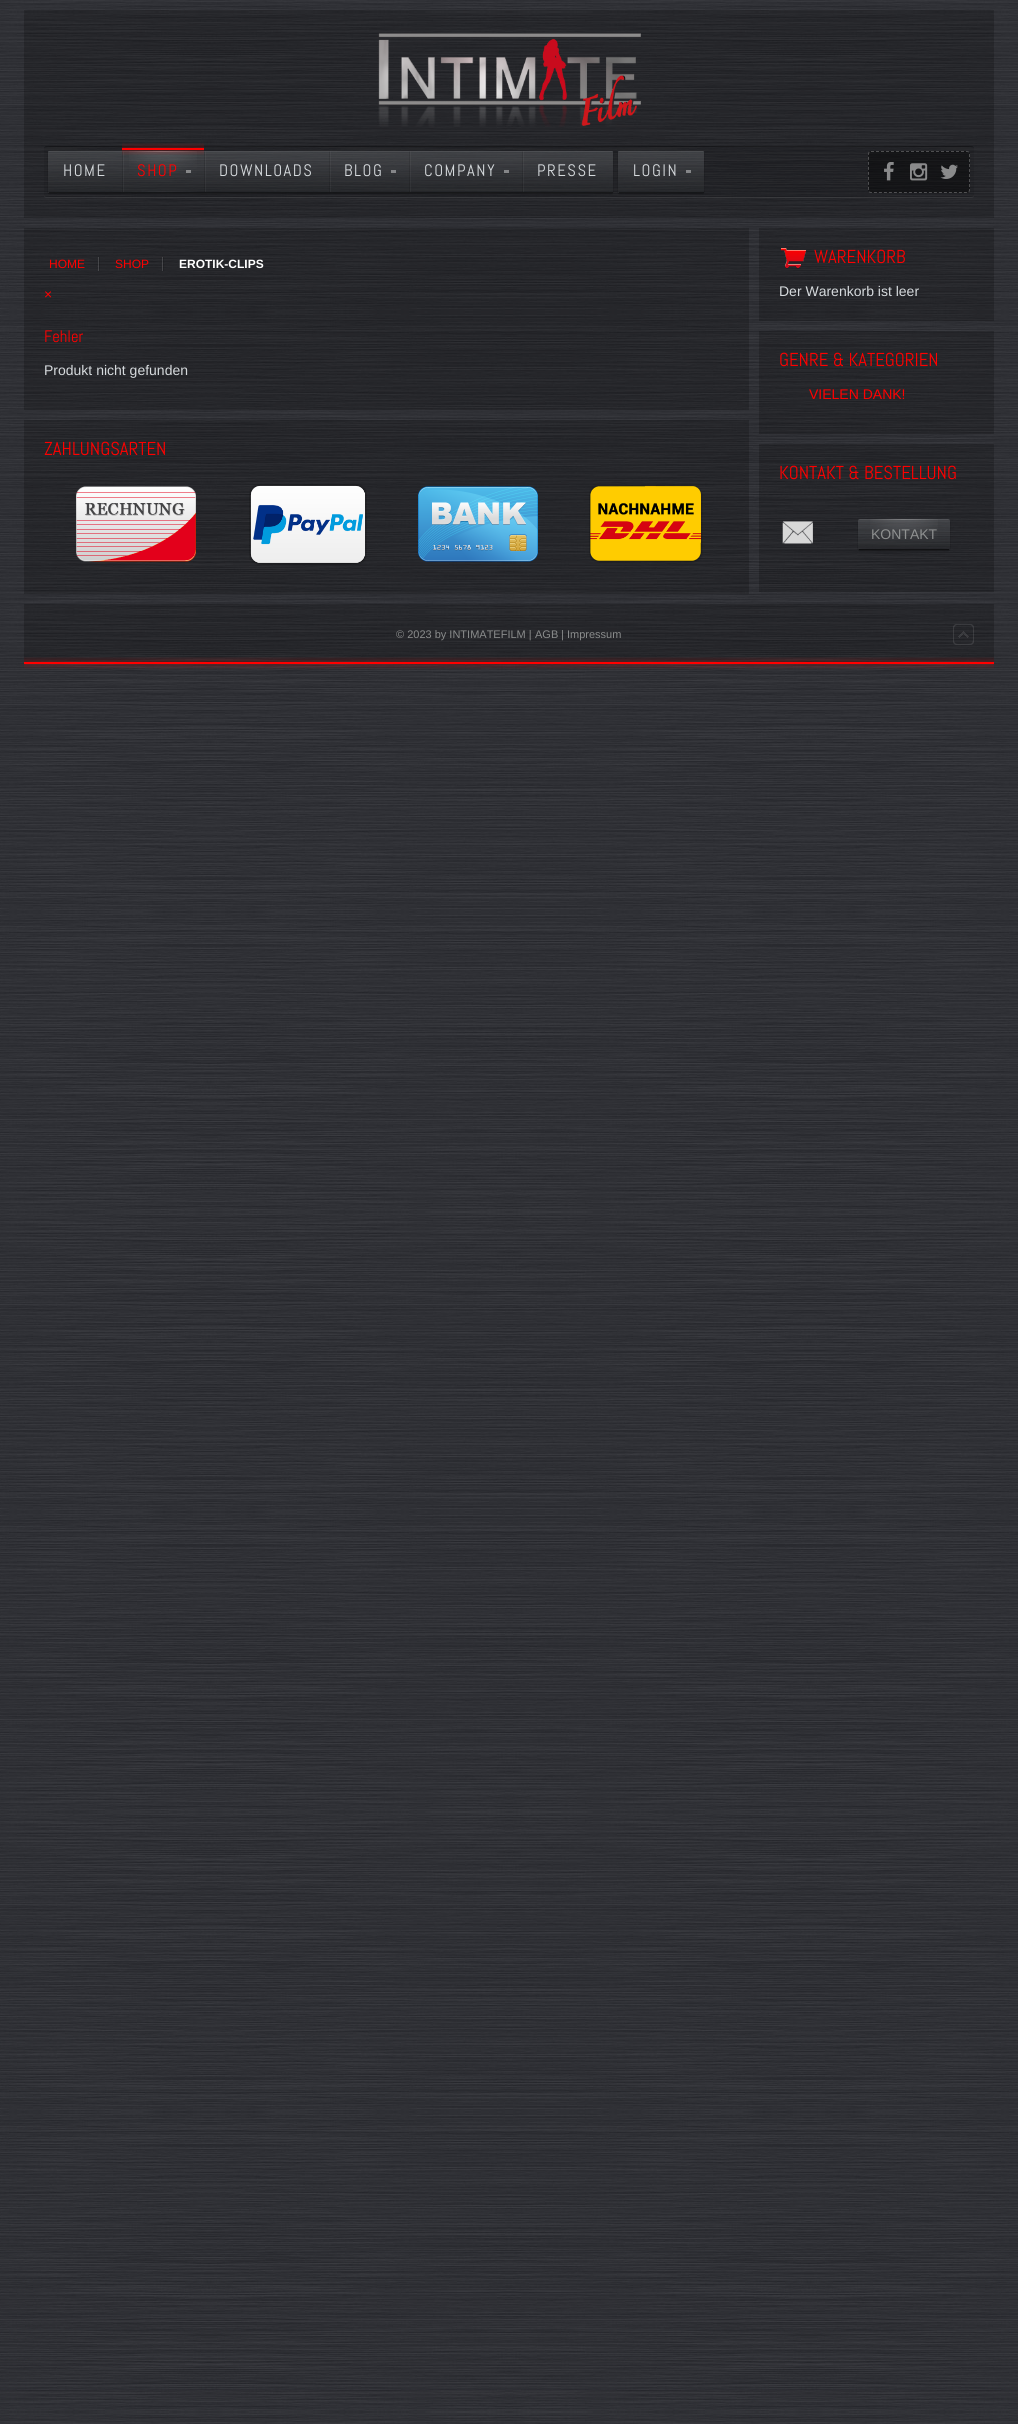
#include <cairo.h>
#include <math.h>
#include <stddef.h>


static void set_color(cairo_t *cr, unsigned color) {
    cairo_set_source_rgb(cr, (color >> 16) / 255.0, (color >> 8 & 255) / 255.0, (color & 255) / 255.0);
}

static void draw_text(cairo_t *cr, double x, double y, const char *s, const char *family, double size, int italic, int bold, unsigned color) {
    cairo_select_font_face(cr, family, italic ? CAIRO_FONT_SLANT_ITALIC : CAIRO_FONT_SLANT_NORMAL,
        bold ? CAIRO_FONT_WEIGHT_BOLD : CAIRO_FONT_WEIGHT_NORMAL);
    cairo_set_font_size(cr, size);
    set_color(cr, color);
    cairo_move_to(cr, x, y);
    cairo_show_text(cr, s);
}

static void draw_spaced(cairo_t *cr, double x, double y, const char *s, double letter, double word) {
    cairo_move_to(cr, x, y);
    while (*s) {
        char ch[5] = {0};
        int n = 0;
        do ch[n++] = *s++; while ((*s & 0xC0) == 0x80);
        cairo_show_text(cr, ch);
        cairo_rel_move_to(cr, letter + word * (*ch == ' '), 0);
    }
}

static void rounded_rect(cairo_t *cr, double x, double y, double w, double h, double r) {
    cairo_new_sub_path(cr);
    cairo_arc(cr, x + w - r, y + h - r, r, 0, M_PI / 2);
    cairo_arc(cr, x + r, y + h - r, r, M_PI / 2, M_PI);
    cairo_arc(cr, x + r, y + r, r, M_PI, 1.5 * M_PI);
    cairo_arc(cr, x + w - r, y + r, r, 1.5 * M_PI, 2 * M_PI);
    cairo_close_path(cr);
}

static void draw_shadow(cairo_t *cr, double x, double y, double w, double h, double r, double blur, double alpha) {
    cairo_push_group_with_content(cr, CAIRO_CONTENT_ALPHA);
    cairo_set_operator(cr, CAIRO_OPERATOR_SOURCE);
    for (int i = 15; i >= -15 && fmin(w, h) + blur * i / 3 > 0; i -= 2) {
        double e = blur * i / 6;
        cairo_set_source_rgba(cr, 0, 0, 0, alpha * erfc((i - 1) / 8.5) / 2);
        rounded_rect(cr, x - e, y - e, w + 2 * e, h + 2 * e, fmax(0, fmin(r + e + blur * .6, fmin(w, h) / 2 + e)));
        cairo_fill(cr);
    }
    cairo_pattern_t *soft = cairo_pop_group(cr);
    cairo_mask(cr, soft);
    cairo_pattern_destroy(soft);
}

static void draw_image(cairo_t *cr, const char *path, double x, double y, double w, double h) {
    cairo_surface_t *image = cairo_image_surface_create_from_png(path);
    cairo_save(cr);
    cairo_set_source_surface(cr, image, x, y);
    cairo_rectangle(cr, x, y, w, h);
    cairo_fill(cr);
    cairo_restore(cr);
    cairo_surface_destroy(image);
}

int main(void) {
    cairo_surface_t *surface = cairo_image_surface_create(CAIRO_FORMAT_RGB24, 1018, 2424);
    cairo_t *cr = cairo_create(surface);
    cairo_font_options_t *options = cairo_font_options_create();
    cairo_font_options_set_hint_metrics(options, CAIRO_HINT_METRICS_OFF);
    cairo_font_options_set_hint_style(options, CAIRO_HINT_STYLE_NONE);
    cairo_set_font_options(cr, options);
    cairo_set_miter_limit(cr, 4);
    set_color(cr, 0xFFFFFF);
    cairo_paint(cr);
    draw_image(cr, "assets/img1.png", 0, 0, 1018, 2424);
    cairo_set_source_rgba(cr, 0, 0, 0, 0.2);
    cairo_rectangle(cr, 24, 10, 970, 208);
    cairo_fill(cr);
    draw_image(cr, "assets/img2.png", 378, 33, 263, 94);
    cairo_set_source_rgba(cr, 0, 0, 0, 0.08);
    rounded_rect(cr, 44, 146, 930, 52, 3);
    cairo_fill(cr);
    cairo_set_source_rgba(cr, 0, 0, 0, 0.3);
    cairo_new_path(cr);
    cairo_move_to(cr, 47, 146);
    cairo_curve_to(cr, 45, 146, 44, 147, 44, 149);
    cairo_curve_to(cr, 44, 148, 45, 147, 47, 147);
    cairo_line_to(cr, 971, 147);
    cairo_curve_to(cr, 973, 147, 974, 148, 974, 149);
    cairo_curve_to(cr, 974, 147, 973, 146, 971, 146);
    cairo_close_path(cr);
    cairo_fill(cr);
    cairo_set_source_rgba(cr, 1, 1, 1, 0.08);
    cairo_new_path(cr);
    cairo_move_to(cr, 971, 198);
    cairo_curve_to(cr, 973, 198, 974, 197, 974, 195);
    cairo_curve_to(cr, 974, 196, 973, 197, 971, 197);
    cairo_line_to(cr, 47, 197);
    cairo_curve_to(cr, 45, 197, 44, 196, 44, 195);
    cairo_curve_to(cr, 44, 197, 45, 198, 47, 198);
    cairo_close_path(cr);
    cairo_fill(cr);
    cairo_save(cr);
    cairo_set_fill_rule(cr, CAIRO_FILL_RULE_EVEN_ODD);
    cairo_new_path(cr);
    cairo_move_to(cr, 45, 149);
    cairo_line_to(cr, 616, 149);
    cairo_line_to(cr, 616, 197);
    cairo_line_to(cr, 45, 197);
    cairo_close_path(cr);
    cairo_move_to(cr, 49, 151);
    cairo_line_to(cr, 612, 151);
    cairo_curve_to(cr, 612.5, 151, 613, 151.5, 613, 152);
    cairo_line_to(cr, 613, 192);
    cairo_curve_to(cr, 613, 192.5, 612.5, 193, 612, 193);
    cairo_line_to(cr, 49, 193);
    cairo_curve_to(cr, 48.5, 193, 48, 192.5, 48, 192);
    cairo_line_to(cr, 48, 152);
    cairo_curve_to(cr, 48, 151.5, 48.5, 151, 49, 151);
    cairo_close_path(cr);
    cairo_clip(cr);
    set_color(cr, 0x000000);
    draw_shadow(cr, 48, 152, 565, 42, 1, 0.5, 0.3);
    cairo_restore(cr);
    draw_image(cr, "assets/img3.png", 48, 151, 565, 42);
    cairo_set_source_rgba(cr, 0, 0, 0, 0.45);
    cairo_rectangle(cr, 49, 192, 564, 1);
    cairo_fill(cr);
    cairo_select_font_face(cr, "Abel", CAIRO_FONT_SLANT_NORMAL, CAIRO_FONT_WEIGHT_NORMAL);
    cairo_set_font_size(cr, 16);
    set_color(cr, 0xD6DADD);
    draw_spaced(cr, 63, 176, "HOME", 1.5, 0);
    draw_image(cr, "assets/img4.png", 122, 151, 2, 41);
    draw_image(cr, "assets/img5.png", 129, 151, 68, 41);
    draw_image(cr, "assets/img6.png", 122, 143, 82, 12);
    cairo_set_source_rgba(cr, 1, 1, 1, 0.4);
    cairo_rectangle(cr, 186, 170, 5, 3);
    cairo_fill(cr);
    set_color(cr, 0xFF0000);
    draw_spaced(cr, 137, 176, "SHOP", 1.5, 0);
    draw_image(cr, "assets/img7.png", 204, 151, 2, 41);
    set_color(cr, 0xD6DADD);
    draw_spaced(cr, 219, 176, "DOWNLOADS", 1.5, 0);
    draw_image(cr, "assets/img8.png", 329, 151, 2, 41);
    cairo_set_source_rgba(cr, 1, 1, 1, 0.4);
    cairo_rectangle(cr, 391, 170, 5, 3);
    cairo_fill(cr);
    set_color(cr, 0xD6DADD);
    draw_spaced(cr, 344, 176, "BLOG", 1.5, 0);
    draw_image(cr, "assets/img9.png", 409, 151, 2, 41);
    cairo_set_source_rgba(cr, 1, 1, 1, 0.4);
    cairo_rectangle(cr, 504, 170, 5, 3);
    cairo_fill(cr);
    set_color(cr, 0xD6DADD);
    draw_spaced(cr, 424, 176, "COMPANY", 1.5, 0);
    draw_image(cr, "assets/img10.png", 522, 151, 2, 41);
    draw_spaced(cr, 537, 176, "PRESSE", 1.5, 0);
    cairo_save(cr);
    cairo_set_fill_rule(cr, CAIRO_FILL_RULE_EVEN_ODD);
    cairo_new_path(cr);
    cairo_move_to(cr, 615, 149);
    cairo_line_to(cr, 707, 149);
    cairo_line_to(cr, 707, 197);
    cairo_line_to(cr, 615, 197);
    cairo_close_path(cr);
    cairo_move_to(cr, 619, 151);
    cairo_line_to(cr, 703, 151);
    cairo_curve_to(cr, 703.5, 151, 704, 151.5, 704, 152);
    cairo_line_to(cr, 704, 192);
    cairo_curve_to(cr, 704, 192.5, 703.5, 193, 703, 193);
    cairo_line_to(cr, 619, 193);
    cairo_curve_to(cr, 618.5, 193, 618, 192.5, 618, 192);
    cairo_line_to(cr, 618, 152);
    cairo_curve_to(cr, 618, 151.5, 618.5, 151, 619, 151);
    cairo_close_path(cr);
    cairo_clip(cr);
    set_color(cr, 0x000000);
    draw_shadow(cr, 618, 152, 86, 42, 1, 0.5, 0.3);
    cairo_restore(cr);
    draw_image(cr, "assets/img11.png", 618, 151, 86, 42);
    cairo_set_source_rgba(cr, 0, 0, 0, 0.45);
    cairo_rectangle(cr, 619, 192, 85, 1);
    cairo_fill(cr);
    cairo_set_source_rgba(cr, 1, 1, 1, 0.4);
    cairo_rectangle(cr, 686, 170, 5, 3);
    cairo_fill(cr);
    set_color(cr, 0xD6DADD);
    draw_spaced(cr, 633, 176, "LOGIN", 1.5, 0);
    cairo_set_source_rgba(cr, 0, 0, 0, 0.4);
    rounded_rect(cr, 868, 151, 102, 42, 3);
    cairo_fill(cr);
    cairo_new_path(cr);
    cairo_move_to(cr, 871, 151.5);
    cairo_line_to(cr, 967, 151.5);
    cairo_curve_to(cr, 968.5, 151.5, 969.5, 152.5, 969.5, 154);
    cairo_line_to(cr, 969.5, 190);
    cairo_curve_to(cr, 969.5, 191.5, 968.5, 192.5, 967, 192.5);
    cairo_line_to(cr, 871, 192.5);
    cairo_curve_to(cr, 869.5, 192.5, 868.5, 191.5, 868.5, 190);
    cairo_line_to(cr, 868.5, 154);
    cairo_curve_to(cr, 868.5, 152.5, 869.5, 151.5, 871, 151.5);
    cairo_close_path(cr);
    cairo_set_source_rgba(cr, 1, 1, 1, 0.25);
    cairo_set_line_width(cr, 1);
    cairo_set_dash(cr, (double[]){3, 2}, 2, 0);
    cairo_stroke(cr);
    draw_image(cr, "assets/img12.png", 884, 162, 10, 19);
    draw_image(cr, "assets/img13.png", 910, 163, 18, 18);
    draw_image(cr, "assets/img14.png", 940, 164, 18, 15);
    cairo_set_source_rgba(cr, 0, 0, 0, 0.2);
    cairo_rectangle(cr, 24, 228, 725, 182);
    cairo_fill(cr);
    draw_image(cr, "assets/img15.png", 98, 257, 2, 14);
    draw_text(cr, 49, 268, "HOME", "Liberation Sans", 12, 0, 0, 0xFF0000);
    draw_image(cr, "assets/img16.png", 162, 257, 2, 14);
    draw_text(cr, 115, 268, "SHOP", "Liberation Sans", 12, 0, 0, 0xFF0000);
    draw_text(cr, 179, 268, "EROTIK-CLIPS", "Liberation Sans", 12, 0, 1, 0xFFFFFF);
    draw_text(cr, 44, 299, "×", "Liberation Sans", 14, 0, 0, 0xFF0000);
    draw_text(cr, 44, 342, "Fehler", "Abel", 16, 0, 0, 0xFF0000);
    draw_text(cr, 44, 375, "Produkt nicht gefunden", "Liberation Sans", 14, 0, 0, 0xD6DADD);
    cairo_set_source_rgba(cr, 0, 0, 0, 0.2);
    cairo_rectangle(cr, 24, 420, 725, 174);
    cairo_fill(cr);
    draw_text(cr, 44, 455, "ZAHLUNGSARTEN", "Abel", 18, 0, 0, 0xFF0000);
    draw_image(cr, "assets/img17.png", 76, 486, 120, 76);
    draw_image(cr, "assets/img18.png", 249, 484, 118, 81);
    draw_image(cr, "assets/img19.png", 418, 486, 120, 76);
    draw_image(cr, "assets/img20.png", 589, 485, 114, 78);
    cairo_set_source_rgba(cr, 0, 0, 0, 0.2);
    cairo_rectangle(cr, 759, 228, 235, 93);
    cairo_fill(cr);
    draw_image(cr, "assets/img21.png", 781, 248, 25, 21);
    draw_text(cr, 814, 263, "WARENKORB", "Abel", 18, 0, 0, 0xFF0000);
    draw_text(cr, 779, 296, "Der Warenkorb ist leer", "Liberation Sans", 14, 0, 0, 0xD6DADD);
    cairo_set_source_rgba(cr, 0, 0, 0, 0.2);
    cairo_rectangle(cr, 759, 331, 235, 103);
    cairo_fill(cr);
    draw_text(cr, 779, 366, "GENRE & KATEGORIEN", "Abel", 18, 0, 0, 0xFF0000);
    draw_text(cr, 809, 399, "VIELEN DANK!", "Liberation Sans", 14, 0, 0, 0xFF0000);
    cairo_set_source_rgba(cr, 0, 0, 0, 0.2);
    cairo_rectangle(cr, 759, 444, 235, 148);
    cairo_fill(cr);
    draw_text(cr, 779, 479, "KONTAKT & BESTELLUNG", "Abel", 18, 0, 0, 0xFF0000);
    draw_image(cr, "assets/img22.png", 782, 521, 31, 23);
    cairo_save(cr);
    cairo_set_fill_rule(cr, CAIRO_FILL_RULE_EVEN_ODD);
    cairo_new_path(cr);
    cairo_move_to(cr, 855, 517);
    cairo_line_to(cr, 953, 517);
    cairo_line_to(cr, 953, 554);
    cairo_line_to(cr, 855, 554);
    cairo_close_path(cr);
    cairo_move_to(cr, 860, 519);
    cairo_line_to(cr, 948, 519);
    cairo_curve_to(cr, 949, 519, 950, 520, 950, 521);
    cairo_line_to(cr, 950, 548);
    cairo_curve_to(cr, 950, 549, 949, 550, 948, 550);
    cairo_line_to(cr, 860, 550);
    cairo_curve_to(cr, 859, 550, 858, 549, 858, 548);
    cairo_line_to(cr, 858, 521);
    cairo_curve_to(cr, 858, 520, 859, 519, 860, 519);
    cairo_close_path(cr);
    cairo_clip(cr);
    set_color(cr, 0x000000);
    draw_shadow(cr, 858, 520, 92, 31, 2, 0.5, 0.3);
    cairo_restore(cr);
    draw_image(cr, "assets/img23.png", 858, 519, 92, 29);
    cairo_set_source_rgba(cr, 0, 0, 0, 0.6);
    cairo_rectangle(cr, 859, 549, 90, 1);
    cairo_fill(cr);
    draw_text(cr, 871, 539, "KONTAKT", "Liberation Sans", 14, 0, 0, 0x8A8C8C);
    draw_image(cr, "assets/img24.png", 870, 519, 68, 21);
    cairo_set_source_rgba(cr, 0, 0, 0, 0.2);
    cairo_rectangle(cr, 24, 604, 970, 58);
    cairo_fill(cr);
    draw_text(cr, 396, 638, "© 2023 by INTIMATEFILM |", "Liberation Sans", 11, 0, 0, 0x8A8C8C);
    draw_text(cr, 535, 638, "AGB", "Liberation Sans", 11, 0, 0, 0x8A8C8C);
    draw_text(cr, 561, 638, "|", "Liberation Sans", 11, 0, 0, 0x8A8C8C);
    draw_text(cr, 567, 638, "Impressum", "Liberation Sans", 11, 0, 0, 0x8A8C8C);
    draw_image(cr, "assets/img25.png", 953, 624, 21, 21);
    draw_image(cr, "assets/img26.png", 24, 657, 970, 12);
    cairo_surface_write_to_png(surface, "output.png");
    cairo_font_options_destroy(options);
    cairo_destroy(cr);
    cairo_surface_destroy(surface);
    return 0;
}
